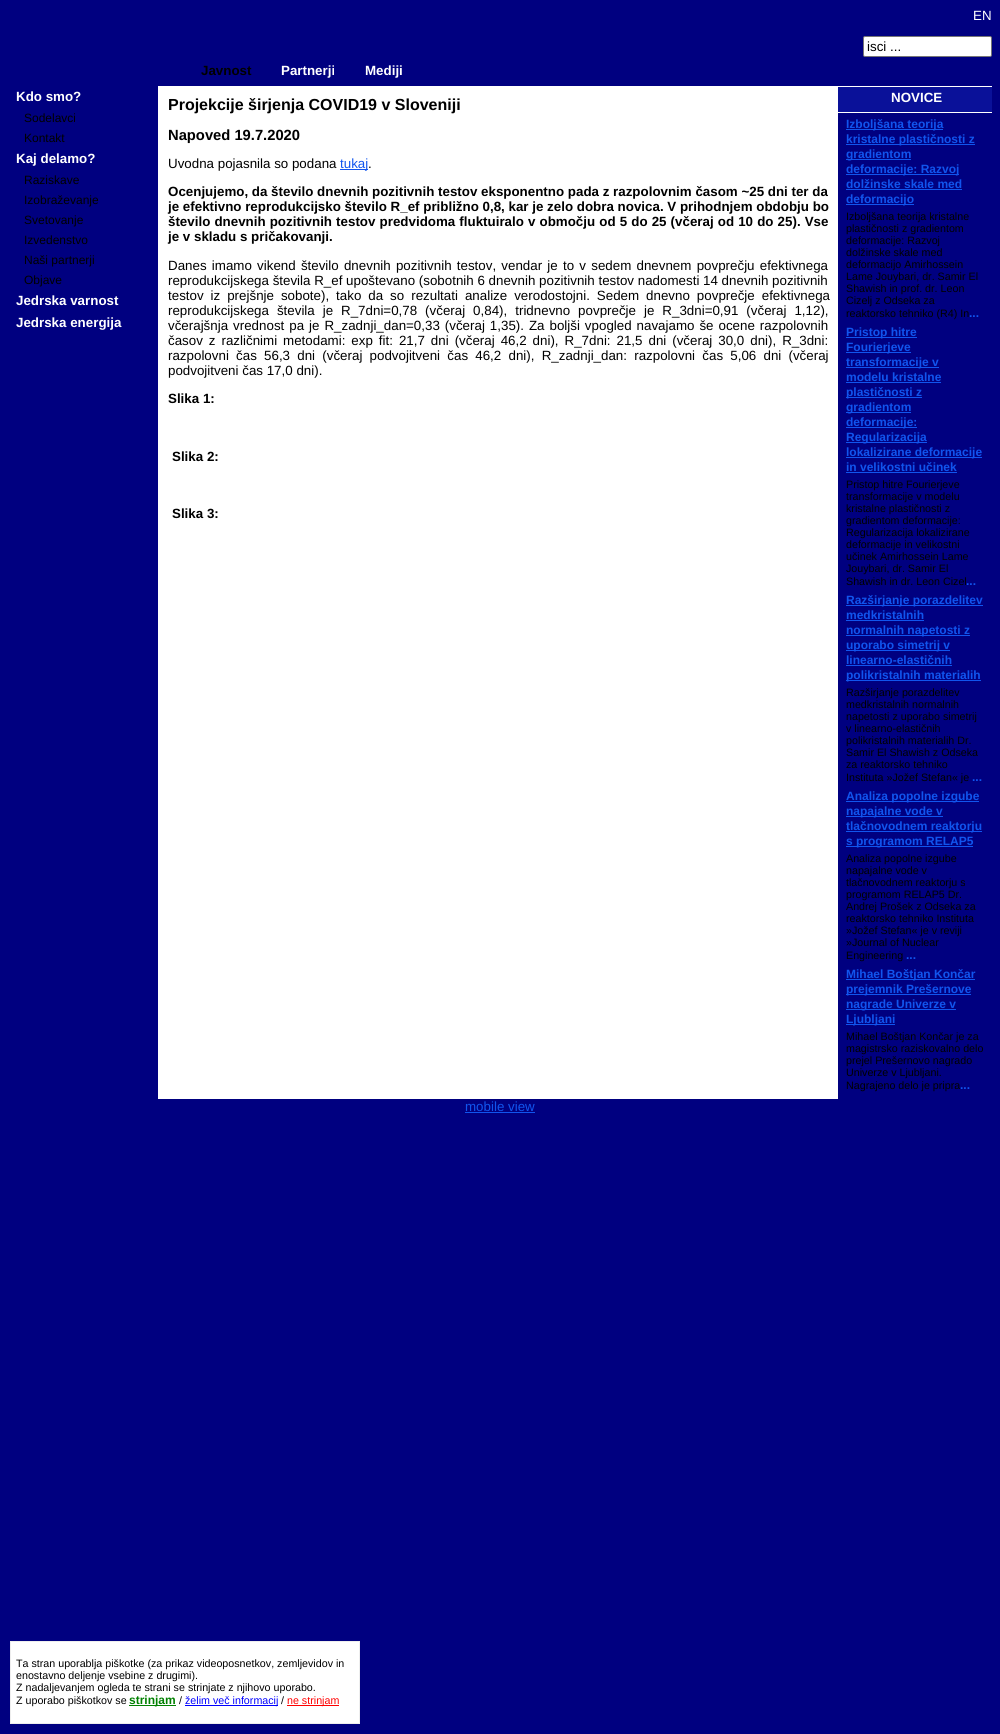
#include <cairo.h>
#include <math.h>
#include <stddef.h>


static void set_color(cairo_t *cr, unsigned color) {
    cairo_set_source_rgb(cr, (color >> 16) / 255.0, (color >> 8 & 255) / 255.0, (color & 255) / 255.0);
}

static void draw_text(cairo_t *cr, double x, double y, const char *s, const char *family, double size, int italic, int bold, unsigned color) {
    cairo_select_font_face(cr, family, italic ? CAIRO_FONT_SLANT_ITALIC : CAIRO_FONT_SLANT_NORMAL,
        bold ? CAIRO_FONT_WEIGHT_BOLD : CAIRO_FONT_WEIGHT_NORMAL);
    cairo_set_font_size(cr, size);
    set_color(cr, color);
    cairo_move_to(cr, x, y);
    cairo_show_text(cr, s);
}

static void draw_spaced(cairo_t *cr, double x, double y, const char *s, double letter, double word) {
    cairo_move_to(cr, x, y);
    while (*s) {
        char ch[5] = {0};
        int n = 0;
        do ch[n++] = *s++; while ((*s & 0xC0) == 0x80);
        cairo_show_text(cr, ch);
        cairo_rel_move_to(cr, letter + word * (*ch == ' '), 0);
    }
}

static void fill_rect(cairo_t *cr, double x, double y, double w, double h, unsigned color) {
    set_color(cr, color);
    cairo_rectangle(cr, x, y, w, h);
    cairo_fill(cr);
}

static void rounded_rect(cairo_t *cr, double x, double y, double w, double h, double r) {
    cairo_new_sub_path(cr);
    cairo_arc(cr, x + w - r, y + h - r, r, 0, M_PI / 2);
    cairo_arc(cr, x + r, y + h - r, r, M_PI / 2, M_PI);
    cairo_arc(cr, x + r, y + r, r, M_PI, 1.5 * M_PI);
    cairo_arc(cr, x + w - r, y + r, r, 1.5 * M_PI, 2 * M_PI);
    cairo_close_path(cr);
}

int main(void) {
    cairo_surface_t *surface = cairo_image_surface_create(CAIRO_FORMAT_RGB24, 1000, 1734);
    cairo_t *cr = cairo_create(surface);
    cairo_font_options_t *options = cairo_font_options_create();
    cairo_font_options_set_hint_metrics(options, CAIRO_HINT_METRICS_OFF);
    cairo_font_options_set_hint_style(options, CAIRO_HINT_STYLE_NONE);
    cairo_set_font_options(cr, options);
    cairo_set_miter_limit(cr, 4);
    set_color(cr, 0x000080);
    cairo_paint(cr);
    draw_text(cr, 973, 20, "EN", "Liberation Sans", 13.35, 0, 0, 0xFFFFFF);
    rounded_rect(cr, 863.5, 36.5, 128, 20, 1.5);
    cairo_fill_preserve(cr);
    set_color(cr, 0x767676);
    cairo_set_line_width(cr, 1);
    cairo_stroke(cr);
    draw_text(cr, 867, 51, "isci ...", "Liberation Sans", 13.35, 0, 0, 0x000000);
    draw_text(cr, 201, 75, "Javnost", "Liberation Sans", 13.35, 0, 1, 0x000000);
    draw_text(cr, 281, 75, "Partnerji", "Liberation Sans", 13.35, 0, 1, 0xFFFFFF);
    draw_text(cr, 365, 75, "Mediji", "Liberation Sans", 13.35, 0, 1, 0xFFFFFF);
    draw_text(cr, 16, 101, "Kdo smo?", "Liberation Sans", 13.35, 0, 1, 0xFFFFFF);
    draw_text(cr, 24, 122, "Sodelavci", "Liberation Sans", 12, 0, 0, 0x000000);
    draw_text(cr, 24, 142, "Kontakt", "Liberation Sans", 12, 0, 0, 0x000000);
    draw_text(cr, 16, 163, "Kaj delamo?", "Liberation Sans", 13.35, 0, 1, 0xFFFFFF);
    draw_text(cr, 24, 184, "Raziskave", "Liberation Sans", 12, 0, 0, 0x000000);
    draw_text(cr, 24, 204, "Izobraževanje", "Liberation Sans", 12, 0, 0, 0x000000);
    draw_text(cr, 24, 224, "Svetovanje", "Liberation Sans", 12, 0, 0, 0x000000);
    draw_text(cr, 24, 244, "Izvedenstvo", "Liberation Sans", 12, 0, 0, 0x000000);
    draw_text(cr, 24, 264, "Naši partnerji", "Liberation Sans", 12, 0, 0, 0x000000);
    draw_text(cr, 24, 284, "Objave", "Liberation Sans", 12, 0, 0, 0x000000);
    draw_text(cr, 16, 305, "Jedrska varnost", "Liberation Sans", 13.35, 0, 1, 0xFFFFFF);
    draw_text(cr, 16, 327, "Jedrska energija", "Liberation Sans", 13.35, 0, 1, 0xFFFFFF);
    fill_rect(cr, 158, 86, 680, 1013, 0xFFFFFF);
    draw_text(cr, 168, 110, "Projekcije širjenja COVID19 v Sloveniji", "Liberation Sans", 16, 0, 1, 0x000000);
    draw_text(cr, 168, 140, "Napoved 19.7.2020", "Liberation Sans", 14.75, 0, 1, 0x000000);
    draw_text(cr, 168, 168, "Uvodna pojasnila so podana", "Liberation Sans", 13.35, 0, 0, 0x000000);
    fill_rect(cr, 340, 169, 28, 1, 0x1155EE);
    draw_text(cr, 340, 168, "tukaj", "Liberation Sans", 13.35, 0, 0, 0x1155EE);
    draw_text(cr, 368, 168, ".", "Liberation Sans", 13.35, 0, 0, 0x000000);
    draw_text(cr, 168, 196, "Ocenjujemo, da število dnevnih pozitivnih testov eksponentno pada z razpolovnim časom ~25 dni ter da", "Liberation Sans", 13.35, 0, 1, 0x000000);
    draw_text(cr, 168, 211, "je efektivno reprodukcijsko število R_ef približno 0,8, kar je zelo dobra novica. V prihodnjem obdobju bo", "Liberation Sans", 13.35, 0, 1, 0x000000);
    draw_spaced(cr, 168, 226, "število dnevnih pozitivnih testov predvidoma fluktuiralo v območju od 5 do 25 (včeraj od 10 do 25). Vse", 0, 0.4);
    draw_text(cr, 168, 241, "je v skladu s pričakovanji.", "Liberation Sans", 13.35, 0, 1, 0x000000);
    cairo_select_font_face(cr, "Liberation Sans", CAIRO_FONT_SLANT_NORMAL, CAIRO_FONT_WEIGHT_NORMAL);
    draw_spaced(cr, 168, 270, "Danes imamo vikend število dnevnih pozitivnih testov, vendar je to v sedem dnevnem povprečju efektivnega", 0, 1.5);
    draw_text(cr, 168, 285, "reprodukcijskega števila R_ef upoštevano (sobotnih 6 dnevnih pozitivnih testov nadomesti 14 dnevnih pozitivnih", "Liberation Sans", 13.35, 0, 0, 0x000000);
    draw_spaced(cr, 168, 300, "testov iz prejšnje sobote), tako da so rezultati analize verodostojni. Sedem dnevno povprečje efektivnega", 0, 3.25);
    draw_spaced(cr, 168, 315, "reprodukcijskega števila je R_7dni=0,78 (včeraj 0,84), tridnevno povprečje je R_3dni=0,91 (včeraj 1,12),", 0, 4.25);
    draw_spaced(cr, 168, 330, "včerajšnja vrednost pa je R_zadnji_dan=0,33 (včeraj 1,35). Za boljši vpogled navajamo še ocene razpolovnih", 0, 1.25);
    draw_spaced(cr, 168, 345, "časov z različnimi metodami: exp fit: 21,7 dni (včeraj 46,2 dni), R_7dni: 21,5 dni (včeraj 30,0 dni), R_3dni:", 0, 2.25);
    draw_spaced(cr, 168, 360, "razpolovni čas 56,3 dni (včeraj podvojitveni čas 46,2 dni), R_zadnji_dan: razpolovni čas 5,06 dni (včeraj", 0, 3.5);
    draw_text(cr, 168, 375, "podvojitveni čas 17,0 dni).", "Liberation Sans", 13.35, 0, 0, 0x000000);
    draw_text(cr, 168, 403, "Slika 1:", "Liberation Sans", 13.35, 0, 1, 0x000000);
    draw_text(cr, 172, 461, "Slika 2:", "Liberation Sans", 13.35, 0, 1, 0x000000);
    draw_text(cr, 172, 518, "Slika 3:", "Liberation Sans", 13.35, 0, 1, 0x000000);
    fill_rect(cr, 838, 86, 154, 1, 0xFFFFFF);
    fill_rect(cr, 838, 87, 154, 25, 0x0A1199);
    fill_rect(cr, 838, 112, 154, 1, 0xFFFFFF);
    draw_text(cr, 891, 102, "NOVICE", "Liberation Sans", 13.35, 0, 1, 0xFFFFFF);
    fill_rect(cr, 846, 129, 97, 1, 0x1155EE);
    draw_text(cr, 846, 128, "Izboljšana teorija", "Liberation Sans", 12, 0, 1, 0x1155EE);
    fill_rect(cr, 846, 144, 129, 1, 0x1155EE);
    draw_text(cr, 846, 143, "kristalne plastičnosti z", "Liberation Sans", 12, 0, 1, 0x1155EE);
    fill_rect(cr, 846, 159, 65, 1, 0x1155EE);
    draw_text(cr, 846, 158, "gradientom", "Liberation Sans", 12, 0, 1, 0x1155EE);
    fill_rect(cr, 846, 174, 113, 1, 0x1155EE);
    draw_text(cr, 846, 173, "deformacije: Razvoj", "Liberation Sans", 12, 0, 1, 0x1155EE);
    draw_text(cr, 846, 188, "dolžinske skale med", "Liberation Sans", 12, 0, 1, 0x1155EE);
    fill_rect(cr, 846, 189, 116, 1, 0x1155EE);
    fill_rect(cr, 846, 204, 68, 1, 0x1155EE);
    draw_text(cr, 846, 203, "deformacijo", "Liberation Sans", 12, 0, 1, 0x1155EE);
    draw_text(cr, 846, 220, "Izboljšana teorija kristalne", "Liberation Sans", 10.7, 0, 0, 0x000000);
    draw_text(cr, 846, 232, "plastičnosti z gradientom", "Liberation Sans", 10.7, 0, 0, 0x000000);
    draw_text(cr, 846, 244, "deformacije: Razvoj", "Liberation Sans", 10.7, 0, 0, 0x000000);
    draw_text(cr, 846, 256, "dolžinske skale med", "Liberation Sans", 10.7, 0, 0, 0x000000);
    draw_text(cr, 846, 268, "deformacijo Amirhossein", "Liberation Sans", 10.7, 0, 0, 0x000000);
    draw_text(cr, 846, 280, "Lame Jouybari, dr. Samir El", "Liberation Sans", 10.7, 0, 0, 0x000000);
    draw_text(cr, 846, 292, "Shawish in prof. dr. Leon", "Liberation Sans", 10.7, 0, 0, 0x000000);
    draw_text(cr, 846, 304, "Cizelj z Odseka za", "Liberation Sans", 10.7, 0, 0, 0x000000);
    draw_text(cr, 846, 317, "reaktorsko tehniko (R4) In", "Liberation Sans", 10.7, 0, 0, 0x000000);
    draw_text(cr, 969, 317, "...", "Liberation Sans", 12, 0, 1, 0x1155EE);
    fill_rect(cr, 846, 337, 71, 1, 0x1155EE);
    draw_text(cr, 846, 336, "Pristop hitre", "Liberation Sans", 12, 0, 1, 0x1155EE);
    fill_rect(cr, 846, 352, 65, 1, 0x1155EE);
    draw_text(cr, 846, 351, "Fourierjeve", "Liberation Sans", 12, 0, 1, 0x1155EE);
    fill_rect(cr, 846, 367, 93, 1, 0x1155EE);
    draw_text(cr, 846, 366, "transformacije v", "Liberation Sans", 12, 0, 1, 0x1155EE);
    draw_text(cr, 846, 381, "modelu kristalne", "Liberation Sans", 12, 0, 1, 0x1155EE);
    fill_rect(cr, 846, 382, 95, 1, 0x1155EE);
    fill_rect(cr, 846, 397, 76, 1, 0x1155EE);
    draw_text(cr, 846, 396, "plastičnosti z", "Liberation Sans", 12, 0, 1, 0x1155EE);
    fill_rect(cr, 846, 412, 65, 1, 0x1155EE);
    draw_text(cr, 846, 411, "gradientom", "Liberation Sans", 12, 0, 1, 0x1155EE);
    fill_rect(cr, 846, 427, 71, 1, 0x1155EE);
    draw_text(cr, 846, 426, "deformacije:", "Liberation Sans", 12, 0, 1, 0x1155EE);
    fill_rect(cr, 846, 442, 81, 1, 0x1155EE);
    draw_text(cr, 846, 441, "Regularizacija", "Liberation Sans", 12, 0, 1, 0x1155EE);
    fill_rect(cr, 846, 457, 136, 1, 0x1155EE);
    draw_text(cr, 846, 456, "lokalizirane deformacije", "Liberation Sans", 12, 0, 1, 0x1155EE);
    draw_text(cr, 846, 471, "in velikostni učinek", "Liberation Sans", 12, 0, 1, 0x1155EE);
    fill_rect(cr, 846, 472, 111, 1, 0x1155EE);
    draw_text(cr, 846, 488, "Pristop hitre Fourierjeve", "Liberation Sans", 10.7, 0, 0, 0x000000);
    draw_text(cr, 846, 500, "transformacije v modelu", "Liberation Sans", 10.7, 0, 0, 0x000000);
    draw_text(cr, 846, 512, "kristalne plastičnosti z", "Liberation Sans", 10.7, 0, 0, 0x000000);
    draw_text(cr, 846, 524, "gradientom deformacije:", "Liberation Sans", 10.7, 0, 0, 0x000000);
    draw_text(cr, 846, 536, "Regularizacija lokalizirane", "Liberation Sans", 10.7, 0, 0, 0x000000);
    draw_text(cr, 846, 548, "deformacije in velikostni", "Liberation Sans", 10.7, 0, 0, 0x000000);
    draw_text(cr, 846, 560, "učinek Amirhossein Lame", "Liberation Sans", 10.7, 0, 0, 0x000000);
    draw_text(cr, 846, 572, "Jouybari, dr. Samir El", "Liberation Sans", 10.7, 0, 0, 0x000000);
    draw_text(cr, 846, 585, "Shawish in dr. Leon Cizel", "Liberation Sans", 10.7, 0, 0, 0x000000);
    draw_text(cr, 966, 585, "...", "Liberation Sans", 12, 0, 1, 0x1155EE);
    fill_rect(cr, 846, 605, 137, 1, 0x1155EE);
    draw_text(cr, 846, 604, "Razširjanje porazdelitev", "Liberation Sans", 12, 0, 1, 0x1155EE);
    draw_text(cr, 846, 619, "medkristalnih", "Liberation Sans", 12, 0, 1, 0x1155EE);
    fill_rect(cr, 846, 620, 78, 1, 0x1155EE);
    fill_rect(cr, 846, 635, 124, 1, 0x1155EE);
    draw_text(cr, 846, 634, "normalnih napetosti z", "Liberation Sans", 12, 0, 1, 0x1155EE);
    fill_rect(cr, 846, 650, 104, 1, 0x1155EE);
    draw_text(cr, 846, 649, "uporabo simetrij v", "Liberation Sans", 12, 0, 1, 0x1155EE);
    draw_text(cr, 846, 664, "linearno-elastičnih", "Liberation Sans", 12, 0, 1, 0x1155EE);
    fill_rect(cr, 846, 665, 106, 1, 0x1155EE);
    fill_rect(cr, 846, 680, 135, 1, 0x1155EE);
    draw_text(cr, 846, 679, "polikristalnih materialih", "Liberation Sans", 12, 0, 1, 0x1155EE);
    draw_text(cr, 846, 696, "Razširjanje porazdelitev", "Liberation Sans", 10.7, 0, 0, 0x000000);
    draw_text(cr, 846, 708, "medkristalnih normalnih", "Liberation Sans", 10.7, 0, 0, 0x000000);
    draw_text(cr, 846, 720, "napetosti z uporabo simetrij", "Liberation Sans", 10.7, 0, 0, 0x000000);
    draw_text(cr, 846, 732, "v linearno-elastičnih", "Liberation Sans", 10.7, 0, 0, 0x000000);
    draw_text(cr, 846, 744, "polikristalnih materialih Dr.", "Liberation Sans", 10.7, 0, 0, 0x000000);
    draw_text(cr, 846, 756, "Samir El Shawish z Odseka", "Liberation Sans", 10.7, 0, 0, 0x000000);
    draw_text(cr, 846, 768, "za reaktorsko tehniko", "Liberation Sans", 10.7, 0, 0, 0x000000);
    draw_text(cr, 846, 781, "Instituta »Jožef Stefan« je", "Liberation Sans", 10.7, 0, 0, 0x000000);
    draw_text(cr, 972, 781, "...", "Liberation Sans", 12, 0, 1, 0x1155EE);
    fill_rect(cr, 846, 801, 133, 1, 0x1155EE);
    draw_text(cr, 846, 800, "Analiza popolne izgube", "Liberation Sans", 12, 0, 1, 0x1155EE);
    fill_rect(cr, 846, 816, 97, 1, 0x1155EE);
    draw_text(cr, 846, 815, "napajalne vode v", "Liberation Sans", 12, 0, 1, 0x1155EE);
    fill_rect(cr, 846, 831, 136, 1, 0x1155EE);
    draw_text(cr, 846, 830, "tlačnovodnem reaktorju", "Liberation Sans", 12, 0, 1, 0x1155EE);
    fill_rect(cr, 846, 846, 127, 1, 0x1155EE);
    draw_text(cr, 846, 845, "s programom RELAP5", "Liberation Sans", 12, 0, 1, 0x1155EE);
    draw_text(cr, 846, 862, "Analiza popolne izgube", "Liberation Sans", 10.7, 0, 0, 0x000000);
    draw_text(cr, 846, 874, "napajalne vode v", "Liberation Sans", 10.7, 0, 0, 0x000000);
    draw_text(cr, 846, 886, "tlačnovodnem reaktorju s", "Liberation Sans", 10.7, 0, 0, 0x000000);
    draw_text(cr, 846, 898, "programom RELAP5 Dr.", "Liberation Sans", 10.7, 0, 0, 0x000000);
    draw_text(cr, 846, 910, "Andrej Prošek z Odseka za", "Liberation Sans", 10.7, 0, 0, 0x000000);
    draw_text(cr, 846, 922, "reaktorsko tehniko Instituta", "Liberation Sans", 10.7, 0, 0, 0x000000);
    draw_text(cr, 846, 934, "»Jožef Stefan« je v reviji", "Liberation Sans", 10.7, 0, 0, 0x000000);
    draw_text(cr, 846, 946, "»Journal of Nuclear", "Liberation Sans", 10.7, 0, 0, 0x000000);
    draw_text(cr, 846, 959, "Engineering", "Liberation Sans", 10.7, 0, 0, 0x000000);
    draw_text(cr, 906, 959, "...", "Liberation Sans", 12, 0, 1, 0x1155EE);
    fill_rect(cr, 846, 979, 129, 1, 0x1155EE);
    draw_text(cr, 846, 978, "Mihael Boštjan Končar", "Liberation Sans", 12, 0, 1, 0x1155EE);
    fill_rect(cr, 846, 994, 125, 1, 0x1155EE);
    draw_text(cr, 846, 993, "prejemnik Prešernove", "Liberation Sans", 12, 0, 1, 0x1155EE);
    fill_rect(cr, 846, 1009, 110, 1, 0x1155EE);
    draw_text(cr, 846, 1008, "nagrade Univerze v", "Liberation Sans", 12, 0, 1, 0x1155EE);
    fill_rect(cr, 846, 1024, 49, 1, 0x1155EE);
    draw_text(cr, 846, 1023, "Ljubljani", "Liberation Sans", 12, 0, 1, 0x1155EE);
    draw_text(cr, 846, 1040, "Mihael Boštjan Končar je za", "Liberation Sans", 10.7, 0, 0, 0x000000);
    draw_text(cr, 846, 1052, "magistrsko raziskovalno delo", "Liberation Sans", 10.7, 0, 0, 0x000000);
    draw_text(cr, 846, 1064, "prejel Prešernovo nagrado", "Liberation Sans", 10.7, 0, 0, 0x000000);
    draw_text(cr, 846, 1076, "Univerze v Ljubljani.", "Liberation Sans", 10.7, 0, 0, 0x000000);
    draw_text(cr, 846, 1089, "Nagrajeno delo je pripra", "Liberation Sans", 10.7, 0, 0, 0x000000);
    draw_text(cr, 960, 1089, "...", "Liberation Sans", 12, 0, 1, 0x1155EE);
    draw_text(cr, 465, 1111, "mobile view", "Liberation Sans", 13.35, 0, 0, 0x1155EE);
    fill_rect(cr, 465, 1112, 70, 1, 0x1155EE);
    set_color(cr, 0xFFFFFF);
    cairo_rectangle(cr, 10.5, 1641.5, 349, 82);
    cairo_fill_preserve(cr);
    set_color(cr, 0xEEEEEE);
    cairo_stroke(cr);
    draw_text(cr, 16, 1667, "Ta stran uporablja piškotke (za prikaz videoposnetkov, zemljevidov in", "Liberation Sans", 10.7, 0, 0, 0x000000);
    draw_text(cr, 16, 1679, "enostavno deljenje vsebine z drugimi).", "Liberation Sans", 10.7, 0, 0, 0x000000);
    draw_text(cr, 16, 1691, "Z nadaljevanjem ogleda te strani se strinjate z njihovo uporabo.", "Liberation Sans", 10.7, 0, 0, 0x000000);
    draw_text(cr, 16, 1704, "Z uporabo piškotkov se", "Liberation Sans", 10.7, 0, 0, 0x000000);
    fill_rect(cr, 129, 1705, 47, 1, 0x008000);
    draw_text(cr, 129, 1704, "strinjam", "Liberation Sans", 12, 0, 1, 0x008000);
    draw_text(cr, 179, 1704, "/", "Liberation Sans", 10.7, 0, 0, 0x000000);
    fill_rect(cr, 185, 1705, 93, 1, 0x0000FF);
    draw_text(cr, 185, 1704, "želim več informacij", "Liberation Sans", 10.7, 0, 0, 0x0000FF);
    draw_text(cr, 281, 1704, "/", "Liberation Sans", 10.7, 0, 0, 0x000000);
    fill_rect(cr, 287, 1705, 52, 1, 0xFF0000);
    draw_text(cr, 287, 1704, "ne strinjam", "Liberation Sans", 10.7, 0, 0, 0xFF0000);
    cairo_surface_write_to_png(surface, "output.png");
    cairo_font_options_destroy(options);
    cairo_destroy(cr);
    cairo_surface_destroy(surface);
    return 0;
}
